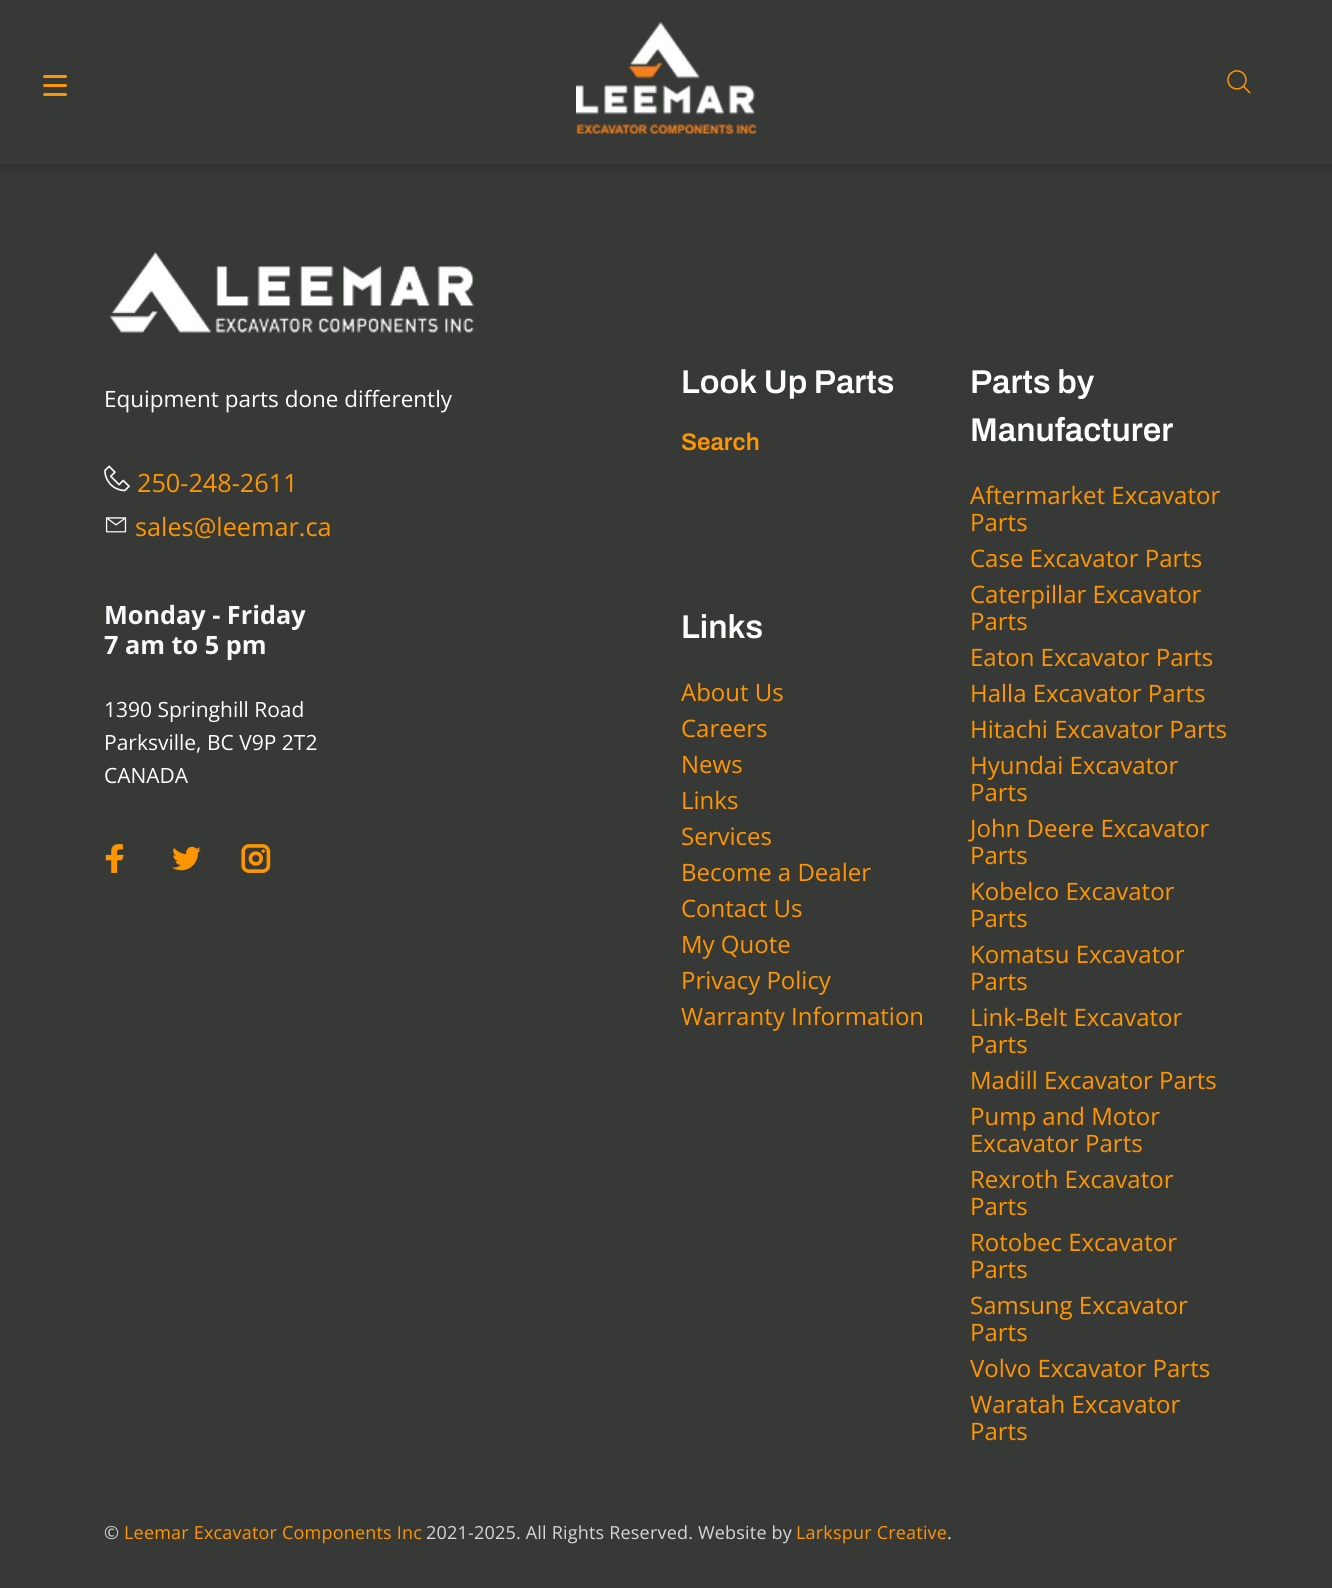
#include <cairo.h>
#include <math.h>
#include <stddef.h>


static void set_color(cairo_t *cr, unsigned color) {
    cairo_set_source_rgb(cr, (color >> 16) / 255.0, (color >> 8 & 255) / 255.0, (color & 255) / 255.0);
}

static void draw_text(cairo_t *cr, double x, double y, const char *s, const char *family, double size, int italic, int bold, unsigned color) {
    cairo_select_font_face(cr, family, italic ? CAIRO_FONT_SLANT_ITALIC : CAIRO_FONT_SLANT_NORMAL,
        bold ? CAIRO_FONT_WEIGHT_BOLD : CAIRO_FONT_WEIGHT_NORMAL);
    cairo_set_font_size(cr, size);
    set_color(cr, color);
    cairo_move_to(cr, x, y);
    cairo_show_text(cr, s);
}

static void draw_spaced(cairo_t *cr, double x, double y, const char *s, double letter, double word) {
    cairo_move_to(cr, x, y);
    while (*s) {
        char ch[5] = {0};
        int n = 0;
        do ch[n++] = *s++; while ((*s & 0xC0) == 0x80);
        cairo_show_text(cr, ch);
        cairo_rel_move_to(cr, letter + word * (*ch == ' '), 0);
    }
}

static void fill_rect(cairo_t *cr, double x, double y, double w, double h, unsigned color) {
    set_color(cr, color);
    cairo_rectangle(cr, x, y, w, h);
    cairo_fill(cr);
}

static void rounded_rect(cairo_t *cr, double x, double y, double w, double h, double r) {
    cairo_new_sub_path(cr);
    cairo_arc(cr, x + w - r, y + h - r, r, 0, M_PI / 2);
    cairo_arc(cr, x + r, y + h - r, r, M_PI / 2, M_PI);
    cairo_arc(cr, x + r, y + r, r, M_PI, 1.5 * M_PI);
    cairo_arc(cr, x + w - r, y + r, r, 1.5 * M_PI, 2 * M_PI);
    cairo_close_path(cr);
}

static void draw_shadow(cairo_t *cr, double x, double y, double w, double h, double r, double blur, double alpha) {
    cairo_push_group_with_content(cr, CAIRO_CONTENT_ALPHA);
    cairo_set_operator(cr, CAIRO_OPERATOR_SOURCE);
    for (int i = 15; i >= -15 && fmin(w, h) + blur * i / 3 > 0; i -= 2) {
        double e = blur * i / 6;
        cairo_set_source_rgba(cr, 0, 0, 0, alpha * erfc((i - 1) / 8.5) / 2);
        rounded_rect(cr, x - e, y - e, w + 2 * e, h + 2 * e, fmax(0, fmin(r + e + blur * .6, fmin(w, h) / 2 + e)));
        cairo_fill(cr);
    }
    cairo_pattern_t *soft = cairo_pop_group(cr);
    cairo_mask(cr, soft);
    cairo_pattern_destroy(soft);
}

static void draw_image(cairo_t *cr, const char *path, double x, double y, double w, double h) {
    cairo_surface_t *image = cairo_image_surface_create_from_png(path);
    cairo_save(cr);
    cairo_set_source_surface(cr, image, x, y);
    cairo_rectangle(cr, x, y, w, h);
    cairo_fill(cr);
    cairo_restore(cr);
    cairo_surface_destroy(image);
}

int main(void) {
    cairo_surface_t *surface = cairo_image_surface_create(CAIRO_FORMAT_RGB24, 1332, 1588);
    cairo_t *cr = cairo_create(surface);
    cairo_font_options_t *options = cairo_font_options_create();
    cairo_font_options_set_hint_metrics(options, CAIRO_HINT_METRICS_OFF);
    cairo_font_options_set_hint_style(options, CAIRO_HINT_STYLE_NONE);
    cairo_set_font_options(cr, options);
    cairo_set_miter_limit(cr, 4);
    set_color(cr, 0x363936);
    cairo_paint(cr);
    set_color(cr, 0x000000);
    draw_shadow(cr, 0, 0, 1332, 164, 0, 6, 0.3);
    fill_rect(cr, 0, 0, 1332, 164, 0x363936);
    draw_image(cr, "assets/img1.png", 43, 75, 24, 21);
    draw_image(cr, "assets/img2.png", 576, 22, 180, 112);
    draw_image(cr, "assets/img3.png", 1227, 70, 24, 24);
    draw_image(cr, "assets/img4.png", 109, 251, 366, 82);
    draw_text(cr, 104, 407, "Equipment parts done differently", "Open Sans", 22.5, 0, 0, 0xFFFFFF);
    draw_image(cr, "assets/img5.png", 104, 465, 26, 27);
    draw_text(cr, 137, 492, "250-248-2611", "Open Sans", 25.25, 0, 0, 0xFF9600);
    draw_image(cr, "assets/img6.png", 105, 517, 22, 16);
    draw_text(cr, 135, 536, "sales@leemar.ca", "Open Sans", 25.25, 0, 0, 0xFF9600);
    draw_text(cr, 104, 624, "Monday - Friday", "Open Sans", 25.25, 0, 1, 0xF7F8FA);
    draw_text(cr, 104, 654, "7 am to 5 pm", "Open Sans", 25.25, 0, 1, 0xF7F8FA);
    draw_text(cr, 104, 717, "1390 Springhill Road", "Open Sans", 21, 0, 0, 0xFFFFFF);
    draw_text(cr, 104, 750, "Parksville, BC V9P 2T2", "Open Sans", 21, 0, 0, 0xFFFFFF);
    draw_text(cr, 104, 783, "CANADA", "Open Sans", 21, 0, 0, 0xFFFFFF);
    draw_image(cr, "assets/img7.png", 105, 844, 19, 29);
    draw_image(cr, "assets/img8.png", 172, 846, 29, 25);
    draw_image(cr, "assets/img9.png", 241, 844, 30, 29);
    draw_text(cr, 681, 393, "Look Up Parts", "Archivo SemiBold", 33, 0, 0, 0xFFFFFF);
    draw_text(cr, 681, 450, "Search", "Archivo SemiBold", 24, 0, 0, 0xFF9600);
    draw_text(cr, 681, 638, "Links", "Archivo SemiBold", 33, 0, 0, 0xFFFFFF);
    draw_text(cr, 681, 701, "About Us", "Open Sans", 24, 0, 0, 0xFF9600);
    draw_text(cr, 681, 737, "Careers", "Open Sans", 24, 0, 0, 0xFF9600);
    draw_text(cr, 681, 773, "News", "Open Sans", 24, 0, 0, 0xFF9600);
    draw_text(cr, 681, 809, "Links", "Open Sans", 24, 0, 0, 0xFF9600);
    draw_text(cr, 681, 845, "Services", "Open Sans", 24, 0, 0, 0xFF9600);
    draw_text(cr, 681, 881, "Become a Dealer", "Open Sans", 24, 0, 0, 0xFF9600);
    draw_text(cr, 681, 917, "Contact Us", "Open Sans", 24, 0, 0, 0xFF9600);
    draw_text(cr, 681, 953, "My Quote", "Open Sans", 24, 0, 0, 0xFF9600);
    draw_text(cr, 681, 989, "Privacy Policy", "Open Sans", 24, 0, 0, 0xFF9600);
    draw_text(cr, 681, 1025, "Warranty Information", "Open Sans", 24, 0, 0, 0xFF9600);
    draw_text(cr, 970, 393, "Parts by", "Archivo SemiBold", 33, 0, 0, 0xFFFFFF);
    draw_text(cr, 970, 441, "Manufacturer", "Archivo SemiBold", 33, 0, 0, 0xFFFFFF);
    draw_text(cr, 970, 504, "Aftermarket Excavator", "Open Sans", 24, 0, 0, 0xFF9600);
    draw_text(cr, 970, 531, "Parts", "Open Sans", 24, 0, 0, 0xFF9600);
    draw_text(cr, 970, 567, "Case Excavator Parts", "Open Sans", 24, 0, 0, 0xFF9600);
    draw_text(cr, 970, 603, "Caterpillar Excavator", "Open Sans", 24, 0, 0, 0xFF9600);
    draw_text(cr, 970, 630, "Parts", "Open Sans", 24, 0, 0, 0xFF9600);
    draw_text(cr, 970, 666, "Eaton Excavator Parts", "Open Sans", 24, 0, 0, 0xFF9600);
    draw_text(cr, 970, 702, "Halla Excavator Parts", "Open Sans", 24, 0, 0, 0xFF9600);
    draw_text(cr, 970, 738, "Hitachi Excavator Parts", "Open Sans", 24, 0, 0, 0xFF9600);
    draw_text(cr, 970, 774, "Hyundai Excavator", "Open Sans", 24, 0, 0, 0xFF9600);
    draw_text(cr, 970, 801, "Parts", "Open Sans", 24, 0, 0, 0xFF9600);
    draw_text(cr, 970, 837, "John Deere Excavator", "Open Sans", 24, 0, 0, 0xFF9600);
    draw_text(cr, 970, 864, "Parts", "Open Sans", 24, 0, 0, 0xFF9600);
    draw_text(cr, 970, 900, "Kobelco Excavator", "Open Sans", 24, 0, 0, 0xFF9600);
    draw_text(cr, 970, 927, "Parts", "Open Sans", 24, 0, 0, 0xFF9600);
    draw_text(cr, 970, 963, "Komatsu Excavator", "Open Sans", 24, 0, 0, 0xFF9600);
    draw_text(cr, 970, 990, "Parts", "Open Sans", 24, 0, 0, 0xFF9600);
    draw_text(cr, 970, 1026, "Link-Belt Excavator", "Open Sans", 24, 0, 0, 0xFF9600);
    draw_text(cr, 970, 1053, "Parts", "Open Sans", 24, 0, 0, 0xFF9600);
    draw_text(cr, 970, 1089, "Madill Excavator Parts", "Open Sans", 24, 0, 0, 0xFF9600);
    draw_text(cr, 970, 1125, "Pump and Motor", "Open Sans", 24, 0, 0, 0xFF9600);
    draw_text(cr, 970, 1152, "Excavator Parts", "Open Sans", 24, 0, 0, 0xFF9600);
    draw_text(cr, 970, 1188, "Rexroth Excavator", "Open Sans", 24, 0, 0, 0xFF9600);
    draw_text(cr, 970, 1215, "Parts", "Open Sans", 24, 0, 0, 0xFF9600);
    draw_text(cr, 970, 1251, "Rotobec Excavator", "Open Sans", 24, 0, 0, 0xFF9600);
    draw_text(cr, 970, 1278, "Parts", "Open Sans", 24, 0, 0, 0xFF9600);
    draw_text(cr, 970, 1314, "Samsung Excavator", "Open Sans", 24, 0, 0, 0xFF9600);
    draw_text(cr, 970, 1341, "Parts", "Open Sans", 24, 0, 0, 0xFF9600);
    draw_text(cr, 970, 1377, "Volvo Excavator Parts", "Open Sans", 24, 0, 0, 0xFF9600);
    draw_text(cr, 970, 1413, "Waratah Excavator", "Open Sans", 24, 0, 0, 0xFF9600);
    draw_text(cr, 970, 1440, "Parts", "Open Sans", 24, 0, 0, 0xFF9600);
    cairo_set_font_size(cr, 18);
    set_color(cr, 0xD6D6D6);
    draw_spaced(cr, 104, 1539, "©", 0.2, 0);
    set_color(cr, 0xFF9600);
    draw_spaced(cr, 124, 1539, "Leemar Excavator Components Inc", 0.2, 0);
    set_color(cr, 0xD6D6D6);
    draw_spaced(cr, 426, 1539, "2021-2025. All Rights Reserved. Website by", 0.2, 0);
    set_color(cr, 0xFF9600);
    draw_spaced(cr, 796, 1539, "Larkspur Creative", 0.2, 0);
    set_color(cr, 0xD6D6D6);
    draw_spaced(cr, 947, 1539, ".", 0.2, 0);
    cairo_surface_write_to_png(surface, "output.png");
    cairo_font_options_destroy(options);
    cairo_destroy(cr);
    cairo_surface_destroy(surface);
    return 0;
}
